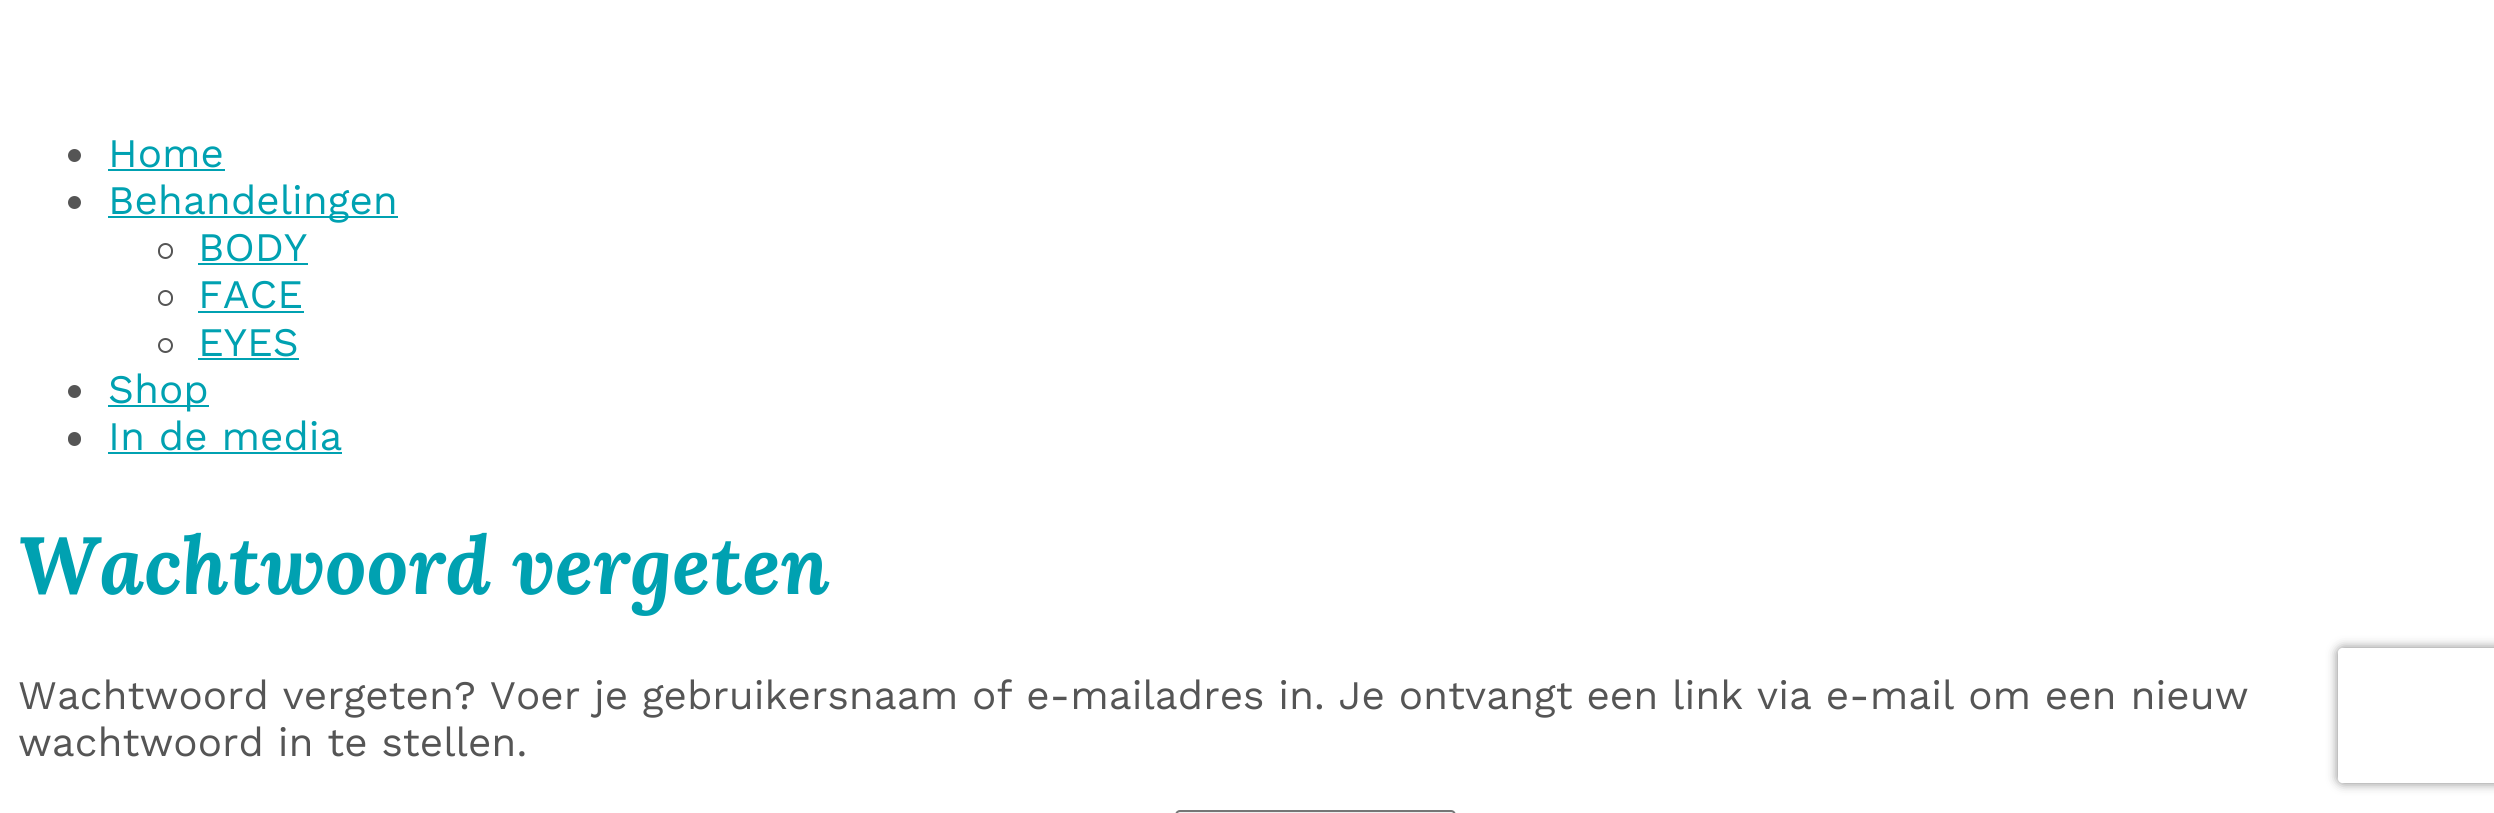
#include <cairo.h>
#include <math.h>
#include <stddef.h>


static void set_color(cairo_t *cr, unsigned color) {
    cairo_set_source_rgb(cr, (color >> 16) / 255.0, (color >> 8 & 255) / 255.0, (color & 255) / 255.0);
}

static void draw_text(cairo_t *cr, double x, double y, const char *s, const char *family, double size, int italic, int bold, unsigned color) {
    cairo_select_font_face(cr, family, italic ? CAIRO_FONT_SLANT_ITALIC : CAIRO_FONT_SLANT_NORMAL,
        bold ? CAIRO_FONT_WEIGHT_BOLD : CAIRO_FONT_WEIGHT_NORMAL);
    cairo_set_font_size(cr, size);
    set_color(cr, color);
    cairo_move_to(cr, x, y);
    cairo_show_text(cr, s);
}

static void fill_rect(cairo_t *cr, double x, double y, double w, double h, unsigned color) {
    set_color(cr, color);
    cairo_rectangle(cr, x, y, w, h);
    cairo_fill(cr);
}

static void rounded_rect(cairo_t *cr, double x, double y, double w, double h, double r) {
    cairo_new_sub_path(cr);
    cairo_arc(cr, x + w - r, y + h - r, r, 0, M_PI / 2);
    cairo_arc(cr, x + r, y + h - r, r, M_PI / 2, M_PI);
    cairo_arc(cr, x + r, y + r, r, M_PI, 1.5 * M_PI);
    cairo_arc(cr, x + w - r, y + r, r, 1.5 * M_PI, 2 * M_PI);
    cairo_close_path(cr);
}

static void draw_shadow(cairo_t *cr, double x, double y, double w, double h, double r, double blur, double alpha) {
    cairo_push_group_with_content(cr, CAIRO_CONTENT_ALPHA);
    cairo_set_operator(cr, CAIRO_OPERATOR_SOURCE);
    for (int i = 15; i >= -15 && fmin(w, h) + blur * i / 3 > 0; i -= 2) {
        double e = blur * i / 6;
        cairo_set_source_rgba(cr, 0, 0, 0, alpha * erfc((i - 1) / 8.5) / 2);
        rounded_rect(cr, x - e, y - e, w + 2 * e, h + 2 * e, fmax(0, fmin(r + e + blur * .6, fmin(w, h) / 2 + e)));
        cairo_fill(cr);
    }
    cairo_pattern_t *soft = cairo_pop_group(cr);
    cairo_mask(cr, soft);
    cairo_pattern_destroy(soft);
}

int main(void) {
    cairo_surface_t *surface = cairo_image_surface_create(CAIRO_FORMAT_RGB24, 2494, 813);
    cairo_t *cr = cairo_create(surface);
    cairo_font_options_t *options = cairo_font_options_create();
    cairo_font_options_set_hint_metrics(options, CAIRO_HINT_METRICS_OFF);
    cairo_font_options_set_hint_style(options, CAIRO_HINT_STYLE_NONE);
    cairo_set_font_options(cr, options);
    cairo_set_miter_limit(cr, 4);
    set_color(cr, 0xFFFFFF);
    cairo_paint(cr);
    set_color(cr, 0x555555);
    cairo_arc(cr, 74.5, 155.5, 6.5, 0, 2 * M_PI);
    cairo_fill(cr);
    draw_text(cr, 108, 167, "Home", "Work Sans", 40.5, 0, 0, 0x00A1B1);
    fill_rect(cr, 108, 169, 117, 2, 0x00A1B1);
    set_color(cr, 0x555555);
    cairo_new_path(cr);
    cairo_arc(cr, 74.5, 202.5, 6.5, 0, 2 * M_PI);
    cairo_fill(cr);
    fill_rect(cr, 108, 216, 290, 2, 0x00A1B1);
    draw_text(cr, 108, 214, "Behandelingen", "Work Sans", 40.5, 0, 0, 0x00A1B1);
    rounded_rect(cr, 159, 244, 13, 14, 6.5);
    set_color(cr, 0x555555);
    cairo_stroke(cr);
    draw_text(cr, 198, 261, "BODY", "Work Sans", 40.5, 0, 0, 0x00A1B1);
    fill_rect(cr, 198, 263, 110, 2, 0x00A1B1);
    rounded_rect(cr, 159, 291, 13, 14, 6.5);
    set_color(cr, 0x555555);
    cairo_stroke(cr);
    draw_text(cr, 198, 308, "FACE", "Work Sans", 40.5, 0, 0, 0x00A1B1);
    fill_rect(cr, 198, 311, 106, 2, 0x00A1B1);
    cairo_new_path(cr);
    cairo_arc(cr, 165.5, 345.5, 6.5, 0, 2 * M_PI);
    set_color(cr, 0x555555);
    cairo_stroke(cr);
    draw_text(cr, 198, 356, "EYES", "Work Sans", 40.5, 0, 0, 0x00A1B1);
    fill_rect(cr, 198, 358, 101, 2, 0x00A1B1);
    set_color(cr, 0x555555);
    cairo_new_path(cr);
    cairo_arc(cr, 74.5, 391.5, 6.5, 0, 2 * M_PI);
    cairo_fill(cr);
    fill_rect(cr, 108, 405, 101, 2, 0x00A1B1);
    draw_text(cr, 108, 403, "Shop", "Work Sans", 40.5, 0, 0, 0x00A1B1);
    set_color(cr, 0x555555);
    rounded_rect(cr, 68, 432, 13, 14, 6.5);
    cairo_fill(cr);
    draw_text(cr, 108, 450, "In de media", "Work Sans", 40.5, 0, 0, 0x00A1B1);
    fill_rect(cr, 108, 452, 234, 2, 0x00A1B1);
    draw_text(cr, 18, 594, "Wachtwoord vergeten", "Lora", 81, 1, 1, 0x00A1B1);
    draw_text(cr, 18, 709, "Wachtwoord vergeten? Voer je gebruikersnaam of e-mailadres in. Je ontvangt een link via e-mail om een nieuw", "Work Sans", 40.5, 0, 0, 0x555555);
    draw_text(cr, 18, 756, "wachtwoord in te stellen.", "Work Sans", 40.5, 0, 0, 0x555555);
    set_color(cr, 0xEFEFEF);
    rounded_rect(cr, 1176, 811, 279, 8, 4);
    cairo_fill_preserve(cr);
    set_color(cr, 0x767676);
    cairo_stroke(cr);
    cairo_save(cr);
    cairo_set_fill_rule(cr, CAIRO_FILL_RULE_EVEN_ODD);
    cairo_new_path(cr);
    cairo_move_to(cr, 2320, 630);
    cairo_line_to(cr, 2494, 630);
    cairo_line_to(cr, 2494, 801);
    cairo_line_to(cr, 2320, 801);
    cairo_close_path(cr);
    cairo_move_to(cr, 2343, 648);
    cairo_line_to(cr, 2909, 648);
    cairo_curve_to(cr, 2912, 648, 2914, 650, 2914, 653);
    cairo_line_to(cr, 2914, 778);
    cairo_curve_to(cr, 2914, 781, 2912, 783, 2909, 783);
    cairo_line_to(cr, 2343, 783);
    cairo_curve_to(cr, 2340, 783, 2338, 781, 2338, 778);
    cairo_line_to(cr, 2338, 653);
    cairo_curve_to(cr, 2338, 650, 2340, 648, 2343, 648);
    cairo_close_path(cr);
    cairo_clip(cr);
    set_color(cr, 0x808080);
    draw_shadow(cr, 2338, 648, 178, 135, 5, 5.5, 1);
    cairo_restore(cr);
    cairo_surface_write_to_png(surface, "output.png");
    cairo_font_options_destroy(options);
    cairo_destroy(cr);
    cairo_surface_destroy(surface);
    return 0;
}
